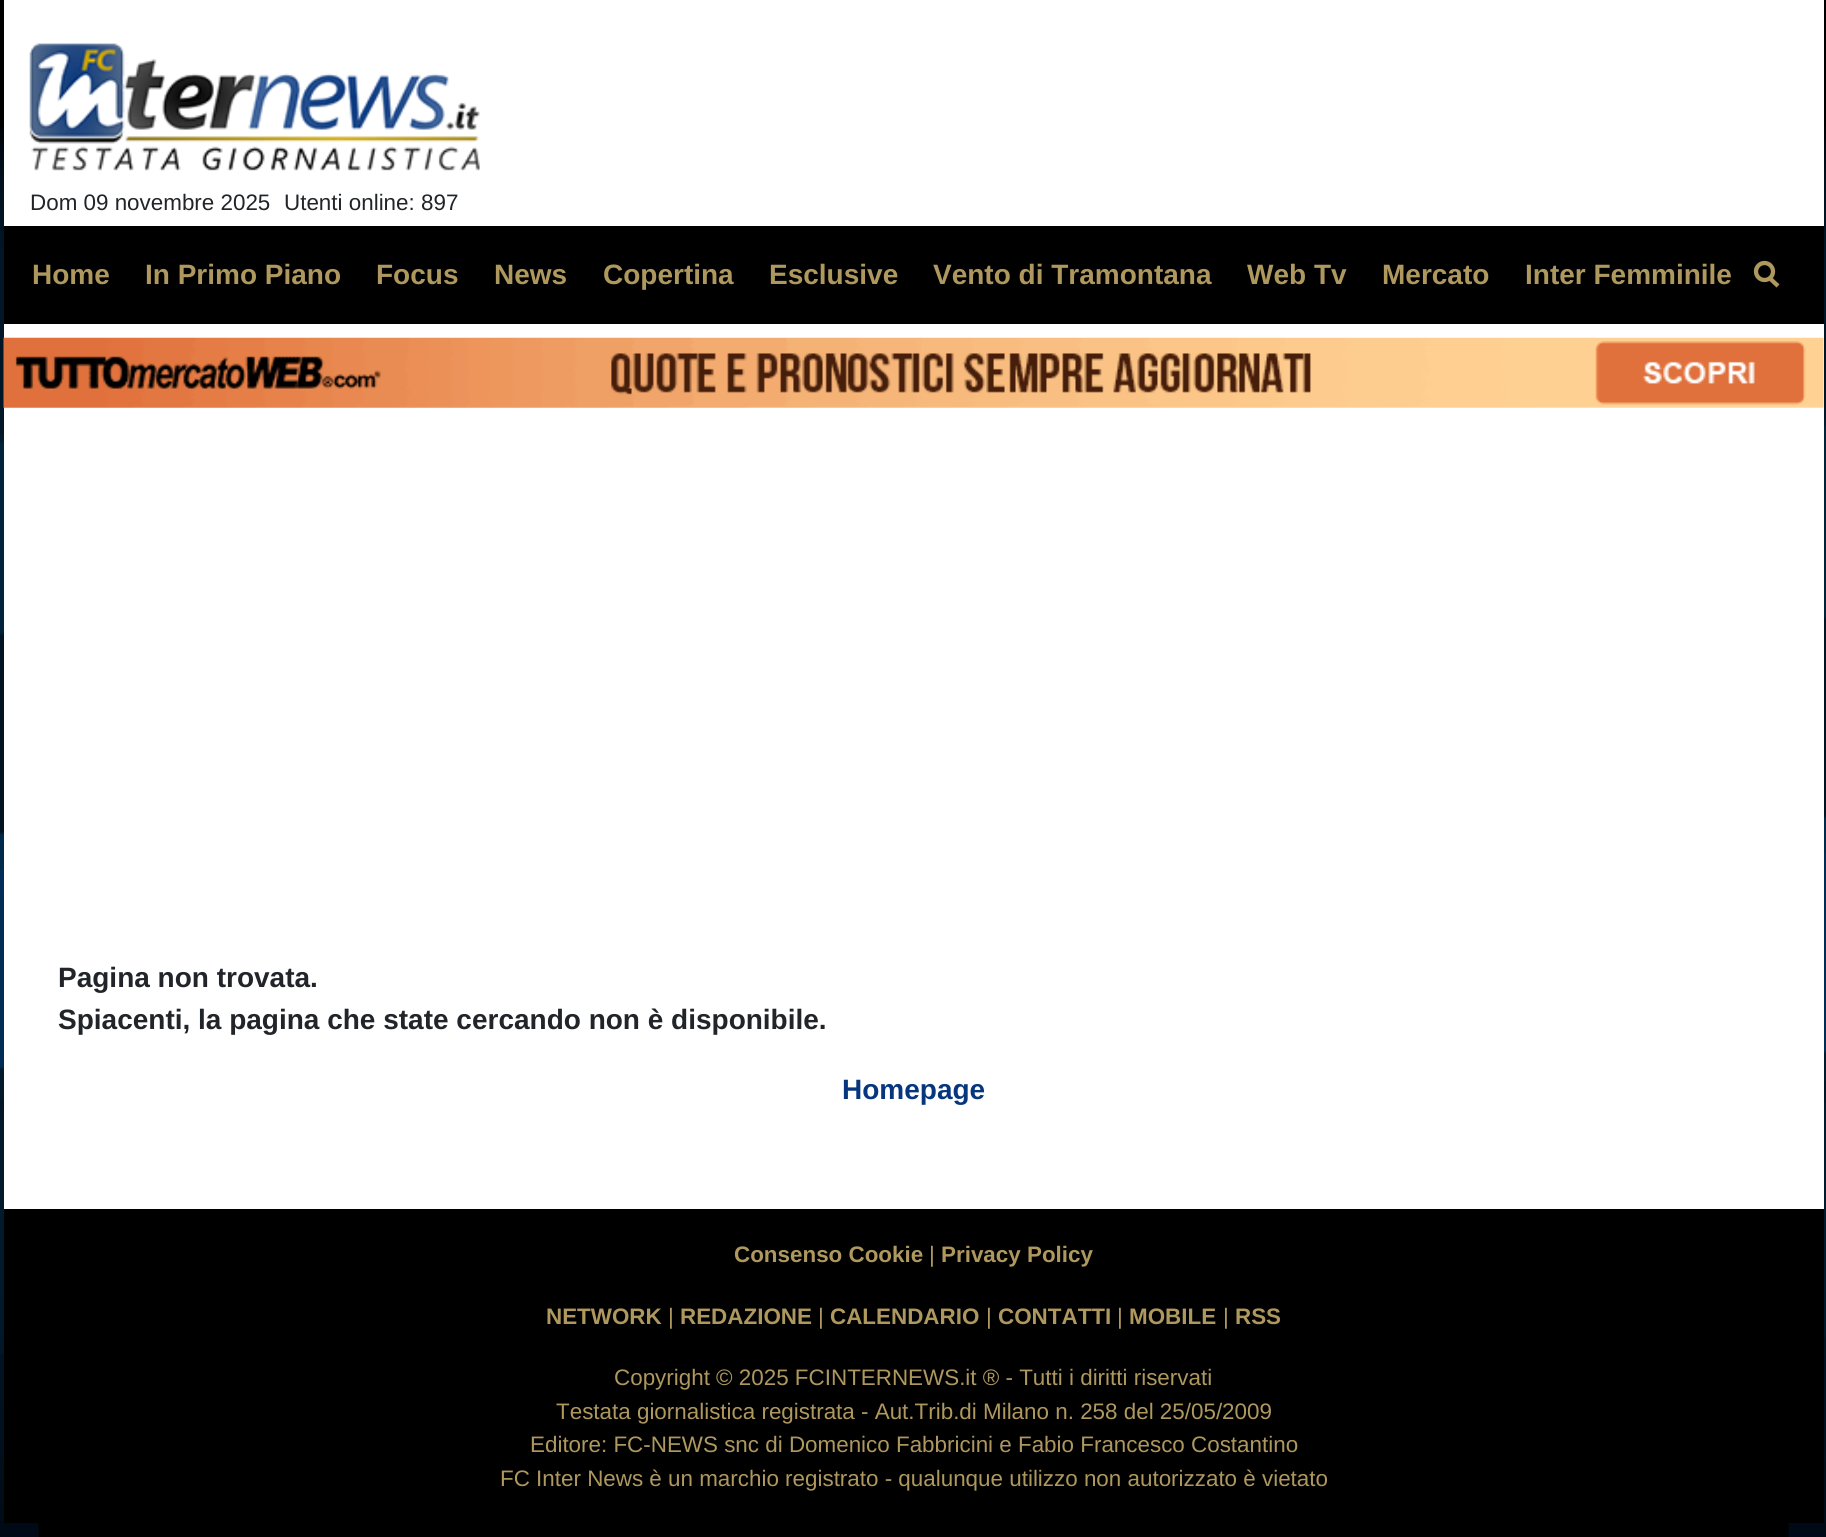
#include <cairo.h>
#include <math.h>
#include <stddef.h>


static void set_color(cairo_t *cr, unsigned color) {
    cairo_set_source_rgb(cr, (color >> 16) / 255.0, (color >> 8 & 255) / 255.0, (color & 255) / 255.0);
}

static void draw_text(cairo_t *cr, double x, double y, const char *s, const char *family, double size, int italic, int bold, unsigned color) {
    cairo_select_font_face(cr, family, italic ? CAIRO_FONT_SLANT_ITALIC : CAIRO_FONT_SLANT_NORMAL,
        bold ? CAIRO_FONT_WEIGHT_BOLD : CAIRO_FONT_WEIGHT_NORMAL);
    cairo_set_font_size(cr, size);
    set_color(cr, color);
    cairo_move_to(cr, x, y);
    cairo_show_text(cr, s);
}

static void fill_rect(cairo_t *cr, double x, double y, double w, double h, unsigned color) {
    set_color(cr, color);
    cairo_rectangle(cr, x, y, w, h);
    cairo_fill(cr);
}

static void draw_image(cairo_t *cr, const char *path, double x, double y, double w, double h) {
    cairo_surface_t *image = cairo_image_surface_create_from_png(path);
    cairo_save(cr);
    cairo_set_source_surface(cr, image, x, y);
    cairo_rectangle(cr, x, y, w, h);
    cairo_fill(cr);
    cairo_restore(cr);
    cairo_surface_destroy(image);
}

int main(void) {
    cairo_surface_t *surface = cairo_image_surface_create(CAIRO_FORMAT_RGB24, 1826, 1537);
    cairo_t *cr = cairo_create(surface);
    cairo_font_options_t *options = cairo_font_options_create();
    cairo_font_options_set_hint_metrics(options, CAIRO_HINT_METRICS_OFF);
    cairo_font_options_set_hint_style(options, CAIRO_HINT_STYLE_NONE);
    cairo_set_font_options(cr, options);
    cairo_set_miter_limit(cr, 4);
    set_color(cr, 0x000000);
    cairo_paint(cr);
    draw_image(cr, "assets/img1.png", 0, 127, 1826, 1410);
    fill_rect(cr, 4, 0, 1820, 1209, 0xFFFFFF);
    draw_image(cr, "assets/img2.png", 29, 43, 451, 128);
    draw_text(cr, 30, 210, "Dom 09 novembre 2025", "Liberation Sans", 22.4, 0, 0, 0x212529);
    draw_text(cr, 284, 210, "Utenti online: 897", "Liberation Sans", 22.4, 0, 0, 0x212529);
    fill_rect(cr, 4, 226, 1820, 98, 0x000000);
    draw_text(cr, 32, 284, "Home", "Liberation Sans", 28, 0, 1, 0xAE985E);
    draw_text(cr, 145, 284, "In Primo Piano", "Liberation Sans", 28, 0, 1, 0xAE985E);
    draw_text(cr, 376, 284, "Focus", "Liberation Sans", 28, 0, 1, 0xAE985E);
    draw_text(cr, 494, 284, "News", "Liberation Sans", 28, 0, 1, 0xAE985E);
    draw_text(cr, 603, 284, "Copertina", "Liberation Sans", 28, 0, 1, 0xAE985E);
    draw_text(cr, 769, 284, "Esclusive", "Liberation Sans", 28, 0, 1, 0xAE985E);
    draw_text(cr, 933, 284, "Vento di Tramontana", "Liberation Sans", 28, 0, 1, 0xAE985E);
    draw_text(cr, 1247, 284, "Web Tv", "Liberation Sans", 28, 0, 1, 0xAE985E);
    draw_text(cr, 1382, 284, "Mercato", "Liberation Sans", 28, 0, 1, 0xAE985E);
    draw_text(cr, 1525, 284, "Inter Femminile", "Liberation Sans", 28, 0, 1, 0xAE985E);
    cairo_new_path(cr);
    cairo_move_to(cr, 1778, 286);
    cairo_line_to(cr, 1769, 277.5);
    cairo_set_line_width(cr, 4.3);
    cairo_stroke(cr);
    cairo_arc(cr, 1764.5, 271.5, 8.5, 0, 2 * M_PI);
    cairo_stroke(cr);
    draw_image(cr, "assets/img3.png", 3, 337, 1821, 71);
    draw_text(cr, 58, 987, "Pagina non trovata.", "Liberation Sans", 28, 0, 1, 0x212529);
    draw_text(cr, 58, 1029, "Spiacenti, la pagina che state cercando non è disponibile.", "Liberation Sans", 28, 0, 1, 0x212529);
    draw_text(cr, 842, 1099, "Homepage", "Liberation Sans", 28, 0, 1, 0x06367E);
    fill_rect(cr, 4, 1209, 1820, 314, 0x000000);
    draw_text(cr, 734, 1262, "Consenso Cookie", "Liberation Sans", 22.4, 0, 1, 0xAE985E);
    draw_text(cr, 929, 1262, "|", "Liberation Sans", 22.4, 0, 0, 0xAE985E);
    draw_text(cr, 941, 1262, "Privacy Policy", "Liberation Sans", 22.4, 0, 1, 0xAE985E);
    draw_text(cr, 546, 1324, "NETWORK", "Liberation Sans", 22.4, 0, 1, 0xAE985E);
    draw_text(cr, 668, 1324, "|", "Liberation Sans", 22.4, 0, 0, 0xAE985E);
    draw_text(cr, 680, 1324, "REDAZIONE", "Liberation Sans", 22.4, 0, 1, 0xAE985E);
    draw_text(cr, 818, 1324, "|", "Liberation Sans", 22.4, 0, 0, 0xAE985E);
    draw_text(cr, 830, 1324, "CALENDARIO", "Liberation Sans", 22.4, 0, 1, 0xAE985E);
    draw_text(cr, 986, 1324, "|", "Liberation Sans", 22.4, 0, 0, 0xAE985E);
    draw_text(cr, 998, 1324, "CONTATTI", "Liberation Sans", 22.4, 0, 1, 0xAE985E);
    draw_text(cr, 1117, 1324, "|", "Liberation Sans", 22.4, 0, 0, 0xAE985E);
    draw_text(cr, 1129, 1324, "MOBILE", "Liberation Sans", 22.4, 0, 1, 0xAE985E);
    draw_text(cr, 1223, 1324, "|", "Liberation Sans", 22.4, 0, 0, 0xAE985E);
    draw_text(cr, 1235, 1324, "RSS", "Liberation Sans", 22.4, 0, 1, 0xAE985E);
    draw_text(cr, 614, 1385, "Copyright © 2025 FCINTERNEWS.it ® - Tutti i diritti riservati", "Liberation Sans", 22.4, 0, 0, 0xAE985E);
    draw_text(cr, 556, 1419, "Testata giornalistica registrata - Aut.Trib.di Milano n. 258 del 25/05/2009", "Liberation Sans", 22.4, 0, 0, 0xAE985E);
    draw_text(cr, 530, 1452, "Editore: FC-NEWS snc di Domenico Fabbricini e Fabio Francesco Costantino", "Liberation Sans", 22.4, 0, 0, 0xAE985E);
    draw_text(cr, 500, 1486, "FC Inter News è un marchio registrato - qualunque utilizzo non autorizzato è vietato", "Liberation Sans", 22.4, 0, 0, 0xAE985E);
    cairo_surface_write_to_png(surface, "output.png");
    cairo_font_options_destroy(options);
    cairo_destroy(cr);
    cairo_surface_destroy(surface);
    return 0;
}
